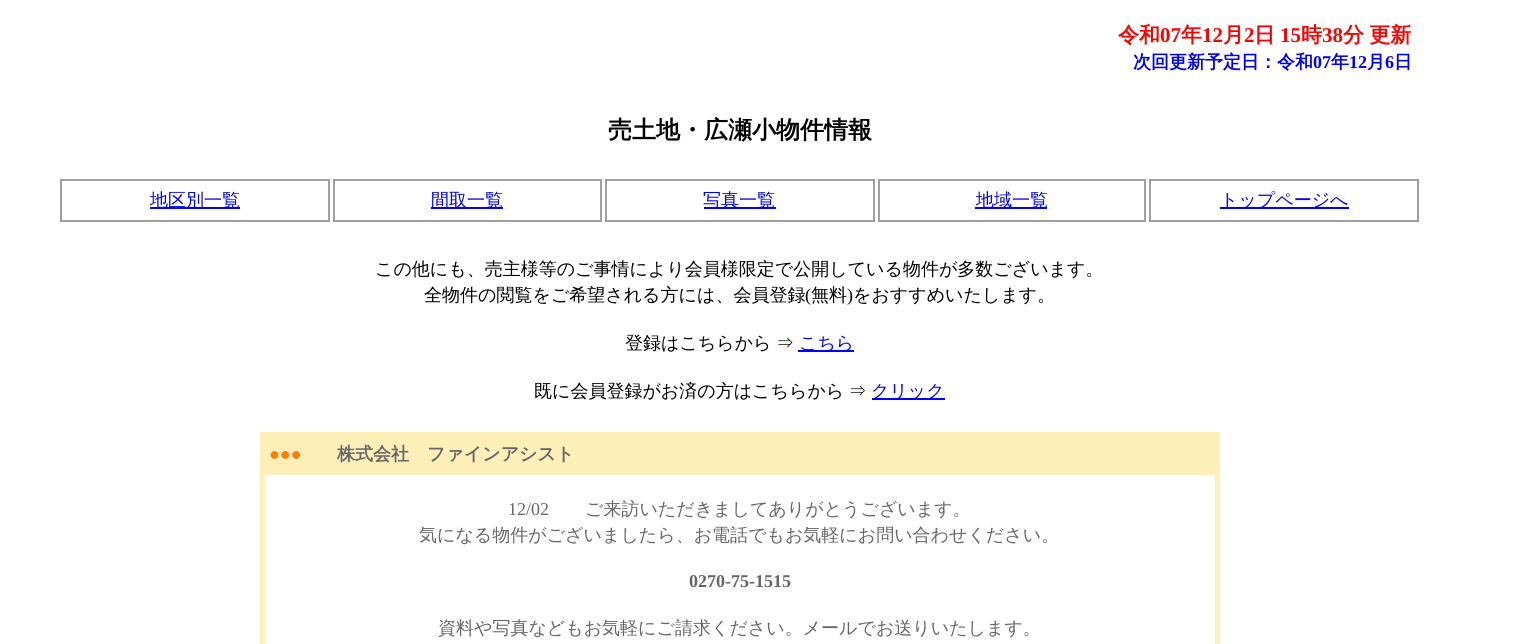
#include <cairo.h>
#include <math.h>
#include <stddef.h>


static void set_color(cairo_t *cr, unsigned color) {
    cairo_set_source_rgb(cr, (color >> 16) / 255.0, (color >> 8 & 255) / 255.0, (color & 255) / 255.0);
}

static void draw_text(cairo_t *cr, double x, double y, const char *s, const char *family, double size, int italic, int bold, unsigned color) {
    cairo_select_font_face(cr, family, italic ? CAIRO_FONT_SLANT_ITALIC : CAIRO_FONT_SLANT_NORMAL,
        bold ? CAIRO_FONT_WEIGHT_BOLD : CAIRO_FONT_WEIGHT_NORMAL);
    cairo_set_font_size(cr, size);
    set_color(cr, color);
    cairo_move_to(cr, x, y);
    cairo_show_text(cr, s);
}

static void draw_spaced(cairo_t *cr, double x, double y, const char *s, double letter, double word) {
    cairo_move_to(cr, x, y);
    while (*s) {
        char ch[5] = {0};
        int n = 0;
        do ch[n++] = *s++; while ((*s & 0xC0) == 0x80);
        cairo_show_text(cr, ch);
        cairo_rel_move_to(cr, letter + word * (*ch == ' '), 0);
    }
}

static void fill_rect(cairo_t *cr, double x, double y, double w, double h, unsigned color) {
    set_color(cr, color);
    cairo_rectangle(cr, x, y, w, h);
    cairo_fill(cr);
}

int main(void) {
    cairo_surface_t *surface = cairo_image_surface_create(CAIRO_FORMAT_RGB24, 1527, 644);
    cairo_t *cr = cairo_create(surface);
    cairo_font_options_t *options = cairo_font_options_create();
    cairo_font_options_set_hint_metrics(options, CAIRO_HINT_METRICS_OFF);
    cairo_font_options_set_hint_style(options, CAIRO_HINT_STYLE_NONE);
    cairo_set_font_options(cr, options);
    cairo_set_miter_limit(cr, 4);
    set_color(cr, 0xFFFFFF);
    cairo_paint(cr);
    draw_text(cr, 1118, 42, "令和", "WenQuanYi Zen Hei", 21, 0, 1, 0xFF0000);
    draw_text(cr, 1160, 42, "07", "Liberation Serif", 21, 0, 1, 0xFF0000);
    draw_text(cr, 1181, 42, "年", "WenQuanYi Zen Hei", 21, 0, 1, 0xFF0000);
    draw_text(cr, 1202, 42, "12", "Liberation Serif", 21, 0, 1, 0xFF0000);
    draw_text(cr, 1223, 42, "月", "WenQuanYi Zen Hei", 21, 0, 1, 0xFF0000);
    draw_text(cr, 1244, 42, "2", "Liberation Serif", 21, 0, 1, 0xFF0000);
    draw_text(cr, 1254, 42, "日", "WenQuanYi Zen Hei", 21, 0, 1, 0xFF0000);
    draw_text(cr, 1280, 42, "15", "Liberation Serif", 21, 0, 1, 0xFF0000);
    draw_text(cr, 1301, 42, "時", "WenQuanYi Zen Hei", 21, 0, 1, 0xFF0000);
    draw_text(cr, 1322, 42, "38", "Liberation Serif", 21, 0, 1, 0xFF0000);
    cairo_select_font_face(cr, "WenQuanYi Zen Hei", CAIRO_FONT_SLANT_NORMAL, CAIRO_FONT_WEIGHT_BOLD);
    draw_spaced(cr, 1343, 42, "分 更新", 0, -1);
    draw_text(cr, 1133, 68, "次回更新予定日：令和", "WenQuanYi Zen Hei", 18, 0, 1, 0x0000FF);
    draw_text(cr, 1313, 68, "07", "Liberation Serif", 18, 0, 1, 0x0000FF);
    draw_text(cr, 1331, 68, "年", "WenQuanYi Zen Hei", 18, 0, 1, 0x0000FF);
    draw_text(cr, 1349, 68, "12", "Liberation Serif", 18, 0, 1, 0x0000FF);
    draw_text(cr, 1367, 68, "月", "WenQuanYi Zen Hei", 18, 0, 1, 0x0000FF);
    draw_text(cr, 1385, 68, "6", "Liberation Serif", 18, 0, 1, 0x0000FF);
    draw_text(cr, 1394, 68, "日", "WenQuanYi Zen Hei", 18, 0, 1, 0x0000FF);
    draw_text(cr, 608, 138, "売土地・広瀬小物件情報", "WenQuanYi Zen Hei", 24, 0, 1, 0x000000);
    cairo_rectangle(cr, 61, 180, 268, 41);
    set_color(cr, 0xA0A0A0);
    cairo_stroke(cr);
    fill_rect(cr, 150, 207, 90, 2, 0x0000FF);
    draw_text(cr, 150, 206, "地区別一覧", "WenQuanYi Zen Hei Medium", 18, 0, 0, 0x0000FF);
    cairo_rectangle(cr, 334, 180, 267, 41);
    set_color(cr, 0xA0A0A0);
    cairo_stroke(cr);
    fill_rect(cr, 431, 207, 72, 2, 0x0000FF);
    draw_text(cr, 431, 206, "間取一覧", "WenQuanYi Zen Hei Medium", 18, 0, 0, 0x0000FF);
    cairo_rectangle(cr, 606, 180, 268, 41);
    set_color(cr, 0xA0A0A0);
    cairo_stroke(cr);
    fill_rect(cr, 704, 207, 72, 2, 0x0000FF);
    draw_text(cr, 703, 206, "写真一覧", "WenQuanYi Zen Hei Medium", 18, 0, 0, 0x0000FF);
    cairo_rectangle(cr, 879, 180, 266, 41);
    set_color(cr, 0xA0A0A0);
    cairo_stroke(cr);
    fill_rect(cr, 975, 207, 72, 2, 0x0000FF);
    draw_text(cr, 976, 206, "地域一覧", "WenQuanYi Zen Hei Medium", 18, 0, 0, 0x0000FF);
    cairo_rectangle(cr, 1150, 180, 268, 41);
    set_color(cr, 0xA0A0A0);
    cairo_stroke(cr);
    fill_rect(cr, 1220, 207, 129, 2, 0x0000FF);
    draw_text(cr, 1220, 206, "トップページへ", "WenQuanYi Zen Hei Medium", 18, 0, 0, 0x0000FF);
    draw_text(cr, 375, 275, "この他にも、売主様等のご事情により会員様限定で公開している物件が多数ございます。", "WenQuanYi Zen Hei Medium", 18, 0, 0, 0x000000);
    draw_text(cr, 424, 301, "全物件の閲覧をご希望される方には、会員登録", "WenQuanYi Zen Hei Medium", 18, 0, 0, 0x000000);
    draw_text(cr, 805, 301, "(", "Liberation Serif", 18, 0, 0, 0x000000);
    draw_text(cr, 811, 301, "無料", "WenQuanYi Zen Hei Medium", 18, 0, 0, 0x000000);
    draw_text(cr, 847, 301, ")", "Liberation Serif", 18, 0, 0, 0x000000);
    draw_text(cr, 853, 301, "をおすすめいたします。", "WenQuanYi Zen Hei Medium", 18, 0, 0, 0x000000);
    draw_spaced(cr, 625, 349, "登録はこちらから ⇒", 0, -1);
    fill_rect(cr, 798, 350, 56, 2, 0x0000FF);
    draw_text(cr, 799, 349, "こちら", "WenQuanYi Zen Hei Medium", 18, 0, 0, 0x0000FF);
    set_color(cr, 0x000000);
    draw_spaced(cr, 534, 397, "既に会員登録がお済の方はこちらから ⇒", 0, -1);
    fill_rect(cr, 872, 398, 73, 2, 0x0000FF);
    draw_text(cr, 871, 397, "クリック", "WenQuanYi Zen Hei Medium", 18, 0, 0, 0x0000FF);
    cairo_rectangle(cr, 261.5, 433.5, 957, 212);
    set_color(cr, 0xFDEFB7);
    cairo_set_line_width(cr, 3);
    cairo_stroke(cr);
    fill_rect(cr, 263, 435, 954, 38, 0xFDEFB7);
    draw_text(cr, 269, 460, "●●●", "Liberation Serif", 18, 0, 0, 0xFF8000);
    draw_text(cr, 337, 460, "株式会社　ファインアシスト", "WenQuanYi Zen Hei", 18, 0, 1, 0x666666);
    cairo_rectangle(cr, 264, 474, 952, 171);
    set_color(cr, 0xFDEFB7);
    cairo_set_line_width(cr, 2);
    cairo_stroke(cr);
    draw_text(cr, 508, 515, "12/02", "Liberation Serif", 18, 0, 0, 0x666666);
    draw_text(cr, 585, 515, "ご来訪いただきましてありがとうございます。", "WenQuanYi Zen Hei Medium", 18, 0, 0, 0x666666);
    draw_text(cr, 419, 541, "気になる物件がございましたら、お電話でもお気軽にお問い合わせください。", "WenQuanYi Zen Hei Medium", 18, 0, 0, 0x666666);
    draw_text(cr, 689, 587, "0270-75-1515", "Liberation Serif", 18, 0, 1, 0x666666);
    draw_text(cr, 438, 634, "資料や写真などもお気軽にご請求ください。メールでお送りいたします。", "WenQuanYi Zen Hei Medium", 18, 0, 0, 0x666666);
    cairo_surface_write_to_png(surface, "output.png");
    cairo_font_options_destroy(options);
    cairo_destroy(cr);
    cairo_surface_destroy(surface);
    return 0;
}
